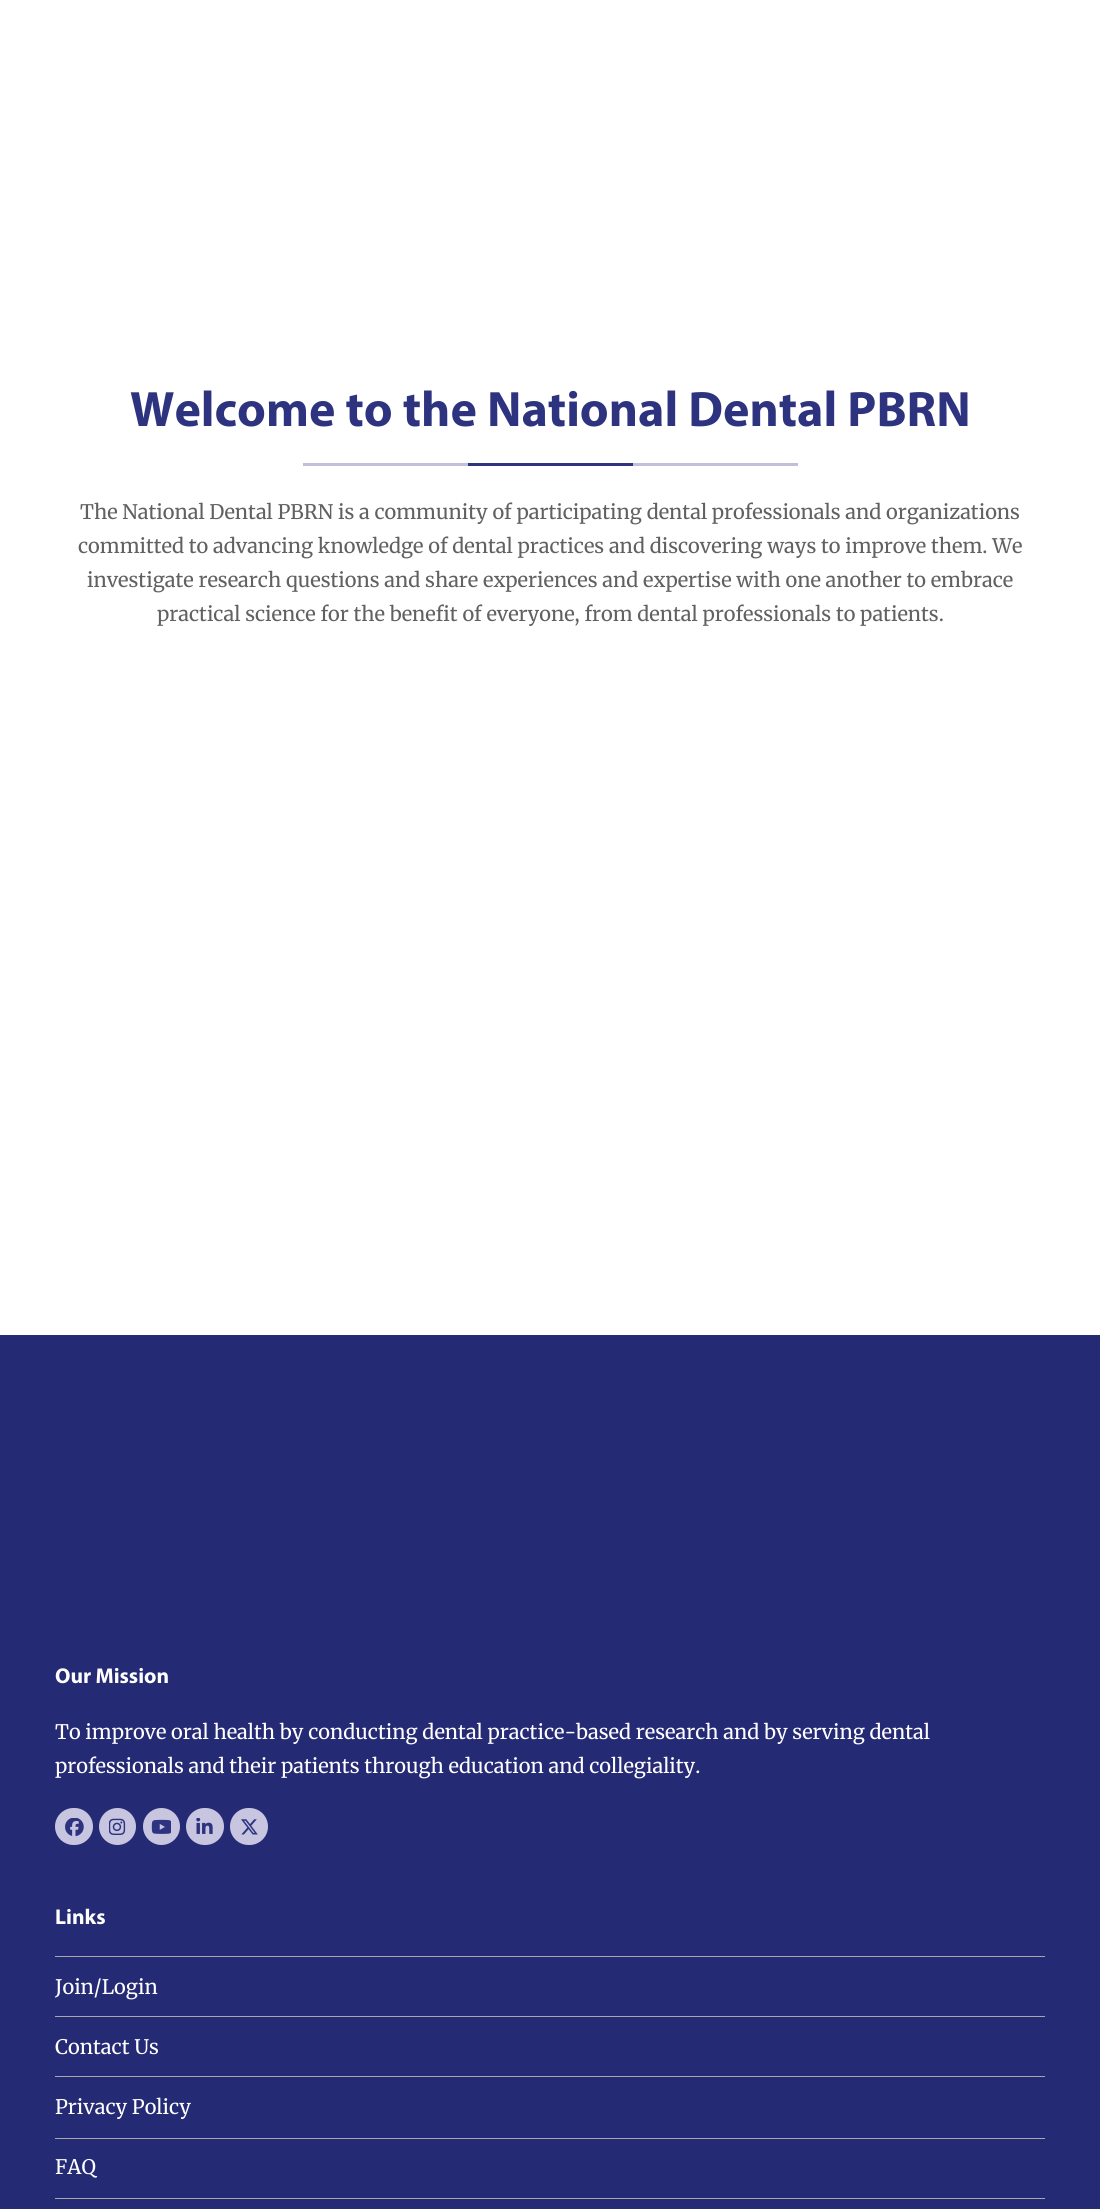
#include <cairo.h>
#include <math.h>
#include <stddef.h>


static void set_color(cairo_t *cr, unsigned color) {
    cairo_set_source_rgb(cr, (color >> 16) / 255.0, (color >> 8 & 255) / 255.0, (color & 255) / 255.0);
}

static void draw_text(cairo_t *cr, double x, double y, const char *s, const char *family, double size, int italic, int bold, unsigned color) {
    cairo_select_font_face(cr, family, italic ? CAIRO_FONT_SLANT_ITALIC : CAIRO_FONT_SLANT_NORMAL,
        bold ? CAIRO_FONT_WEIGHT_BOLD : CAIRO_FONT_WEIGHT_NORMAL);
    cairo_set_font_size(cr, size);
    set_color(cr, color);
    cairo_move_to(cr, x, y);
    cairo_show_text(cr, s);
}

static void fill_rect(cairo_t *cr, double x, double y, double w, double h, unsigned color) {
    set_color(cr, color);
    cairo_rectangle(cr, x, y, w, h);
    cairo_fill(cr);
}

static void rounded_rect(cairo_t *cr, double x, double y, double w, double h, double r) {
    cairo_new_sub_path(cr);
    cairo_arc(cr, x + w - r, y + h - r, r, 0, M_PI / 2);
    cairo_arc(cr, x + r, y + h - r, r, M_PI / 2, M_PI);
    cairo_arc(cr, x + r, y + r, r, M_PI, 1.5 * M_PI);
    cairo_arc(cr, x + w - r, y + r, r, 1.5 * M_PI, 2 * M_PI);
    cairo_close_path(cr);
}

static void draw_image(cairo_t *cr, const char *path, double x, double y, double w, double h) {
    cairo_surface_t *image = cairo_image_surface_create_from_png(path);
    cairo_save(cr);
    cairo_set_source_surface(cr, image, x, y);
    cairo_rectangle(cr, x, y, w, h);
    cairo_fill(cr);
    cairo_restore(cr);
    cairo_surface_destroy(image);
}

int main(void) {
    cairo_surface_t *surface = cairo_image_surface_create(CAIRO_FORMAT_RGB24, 1100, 2209);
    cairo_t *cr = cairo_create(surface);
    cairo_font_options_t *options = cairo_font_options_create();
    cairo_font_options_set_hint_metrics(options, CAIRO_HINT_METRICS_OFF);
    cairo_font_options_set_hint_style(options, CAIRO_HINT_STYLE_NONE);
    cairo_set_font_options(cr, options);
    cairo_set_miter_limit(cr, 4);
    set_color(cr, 0xFFFFFF);
    cairo_paint(cr);
    draw_text(cr, 130, 426, "Welcome to the National Dental PBRN", "Myriad", 50, 0, 1, 0x2D337E);
    fill_rect(cr, 303, 463, 165, 3, 0xC0BFDC);
    fill_rect(cr, 468, 463, 165, 3, 0x2D337E);
    fill_rect(cr, 633, 463, 165, 3, 0xC0BFDC);
    draw_text(cr, 80, 519, "The National Dental PBRN is a community of participating dental professionals and organizations", "Merriweather", 20, 0, 0, 0x616161);
    draw_text(cr, 78, 553, "committed to advancing knowledge of dental practices and discovering ways to improve them. We", "Merriweather", 20, 0, 0, 0x616161);
    draw_text(cr, 87, 587, "investigate research questions and share experiences and expertise with one another to embrace", "Merriweather", 20, 0, 0, 0x616161);
    draw_text(cr, 157, 621, "practical science for the benefit of everyone, from dental professionals to patients.", "Merriweather", 20, 0, 0, 0x616161);
    fill_rect(cr, 0, 1335, 1100, 874, 0x252A75);
    draw_text(cr, 55, 1683, "Our Mission", "Myriad", 21.5, 0, 1, 0xFFFFFF);
    draw_text(cr, 55, 1739, "To improve oral health by conducting dental practice-based research and by serving dental", "Merriweather", 20, 0, 0, 0xFFFFFF);
    draw_text(cr, 55, 1773, "professionals and their patients through education and collegiality.", "Merriweather", 20, 0, 0, 0xFFFFFF);
    set_color(cr, 0xC7C5E0);
    rounded_rect(cr, 55, 1808, 38, 37, 18.5);
    cairo_fill(cr);
    draw_image(cr, "assets/img1.png", 65, 1818, 19, 18);
    cairo_arc(cr, 117.5, 1826.5, 18.5, 0, 2 * M_PI);
    cairo_fill(cr);
    draw_image(cr, "assets/img2.png", 109, 1818, 17, 17);
    cairo_arc(cr, 161.5, 1826.5, 18.5, 0, 2 * M_PI);
    cairo_fill(cr);
    draw_image(cr, "assets/img3.png", 151, 1819, 20, 15);
    rounded_rect(cr, 186, 1808, 38, 37, 18.5);
    cairo_fill(cr);
    draw_image(cr, "assets/img4.png", 196, 1818, 17, 16);
    rounded_rect(cr, 230, 1808, 38, 37, 18.5);
    cairo_fill(cr);
    draw_image(cr, "assets/img5.png", 241, 1819, 17, 16);
    draw_text(cr, 55, 1924, "Links", "Myriad", 21.5, 0, 1, 0xFFFFFF);
    fill_rect(cr, 55, 1956, 990, 1, 0xA8A8A8);
    fill_rect(cr, 55, 2016, 990, 1, 0xA8A8A8);
    draw_text(cr, 55, 1994, "Join/Login", "Merriweather", 20, 0, 0, 0xFFFFFF);
    fill_rect(cr, 55, 2076, 990, 1, 0xA8A8A8);
    draw_text(cr, 55, 2054, "Contact Us", "Merriweather", 20, 0, 0, 0xFFFFFF);
    fill_rect(cr, 55, 2138, 990, 1, 0xA8A8A8);
    draw_text(cr, 55, 2114, "Privacy Policy", "Merriweather", 20, 0, 0, 0xFFFFFF);
    fill_rect(cr, 55, 2198, 990, 1, 0xA8A8A8);
    draw_text(cr, 55, 2174, "FAQ", "Merriweather", 20, 0, 0, 0xFFFFFF);
    cairo_surface_write_to_png(surface, "output.png");
    cairo_font_options_destroy(options);
    cairo_destroy(cr);
    cairo_surface_destroy(surface);
    return 0;
}
